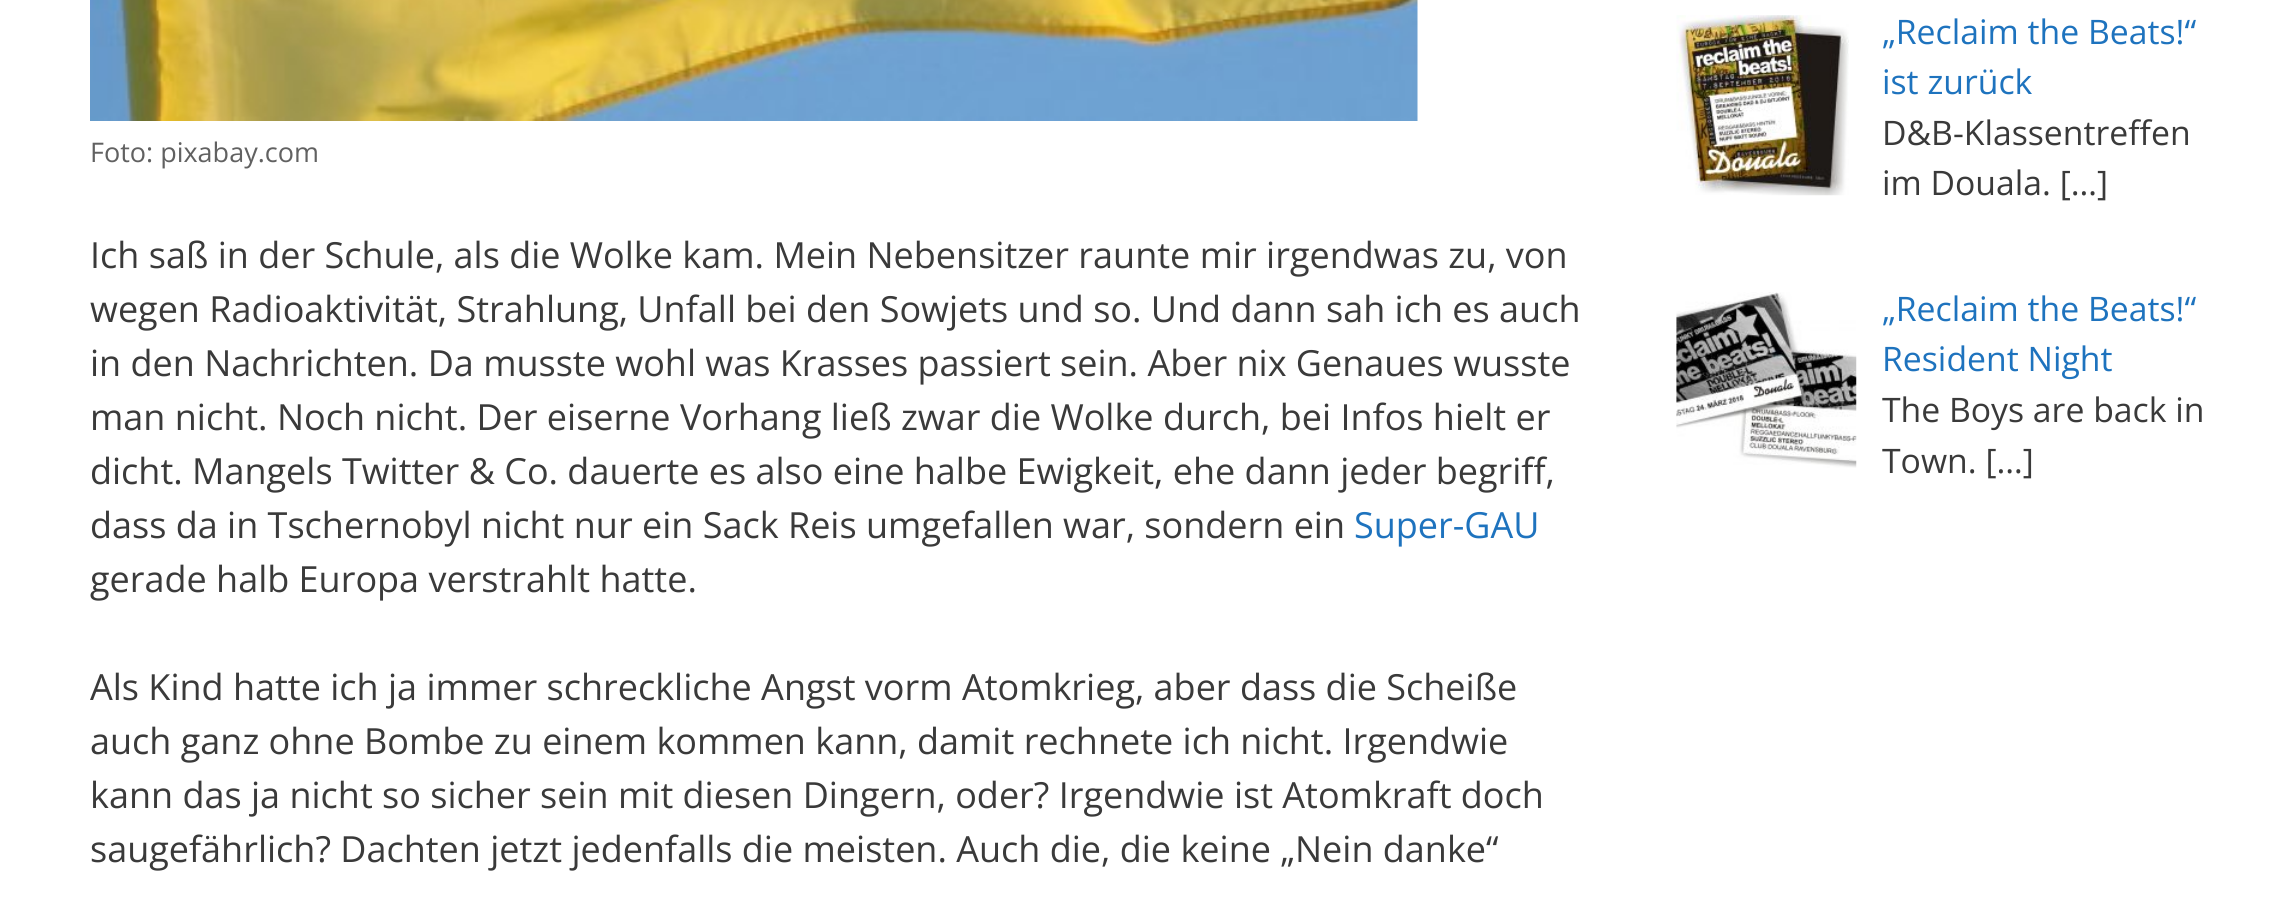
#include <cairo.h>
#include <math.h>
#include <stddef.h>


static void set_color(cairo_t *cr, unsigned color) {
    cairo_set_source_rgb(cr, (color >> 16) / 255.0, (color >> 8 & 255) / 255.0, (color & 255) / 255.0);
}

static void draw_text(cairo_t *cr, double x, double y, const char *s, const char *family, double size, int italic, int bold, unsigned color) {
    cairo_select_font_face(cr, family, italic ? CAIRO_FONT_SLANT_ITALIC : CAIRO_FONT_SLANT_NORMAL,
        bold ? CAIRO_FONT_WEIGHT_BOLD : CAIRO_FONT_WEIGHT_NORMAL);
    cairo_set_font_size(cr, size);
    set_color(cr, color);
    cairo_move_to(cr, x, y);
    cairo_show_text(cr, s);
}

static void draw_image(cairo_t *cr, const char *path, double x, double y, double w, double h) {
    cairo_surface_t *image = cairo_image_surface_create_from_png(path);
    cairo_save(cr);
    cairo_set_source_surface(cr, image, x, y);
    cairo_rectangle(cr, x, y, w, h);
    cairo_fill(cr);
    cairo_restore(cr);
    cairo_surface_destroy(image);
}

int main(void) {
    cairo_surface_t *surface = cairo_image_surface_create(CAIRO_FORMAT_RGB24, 2295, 908);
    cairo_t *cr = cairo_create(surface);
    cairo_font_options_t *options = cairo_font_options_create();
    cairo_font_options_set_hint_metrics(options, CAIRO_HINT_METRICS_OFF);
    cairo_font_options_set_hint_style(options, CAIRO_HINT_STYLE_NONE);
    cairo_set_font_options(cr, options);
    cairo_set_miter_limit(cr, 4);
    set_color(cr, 0xFFFFFF);
    cairo_paint(cr);
    draw_image(cr, "assets/img1.png", 90, 0, 1328, 121);
    draw_text(cr, 90, 162, "Foto: pixabay.com", "Open Sans", 27, 0, 0, 0x616161);
    draw_text(cr, 90, 268, "Ich saß in der Schule, als die Wolke kam. Mein Nebensitzer raunte mir irgendwas zu, von", "Open Sans", 36, 0, 0, 0x3A3A3A);
    draw_text(cr, 90, 322, "wegen Radioaktivität, Strahlung, Unfall bei den Sowjets und so. Und dann sah ich es auch", "Open Sans", 36, 0, 0, 0x3A3A3A);
    draw_text(cr, 90, 376, "in den Nachrichten. Da musste wohl was Krasses passiert sein. Aber nix Genaues wusste", "Open Sans", 36, 0, 0, 0x3A3A3A);
    draw_text(cr, 90, 430, "man nicht. Noch nicht. Der eiserne Vorhang ließ zwar die Wolke durch, bei Infos hielt er", "Open Sans", 36, 0, 0, 0x3A3A3A);
    draw_text(cr, 90, 484, "dicht. Mangels Twitter & Co. dauerte es also eine halbe Ewigkeit, ehe dann jeder begriff,", "Open Sans", 36, 0, 0, 0x3A3A3A);
    draw_text(cr, 90, 538, "dass da in Tschernobyl nicht nur ein Sack Reis umgefallen war, sondern ein", "Open Sans", 36, 0, 0, 0x3A3A3A);
    draw_text(cr, 1354, 538, "Super-GAU", "Open Sans", 36, 0, 0, 0x1E73BE);
    draw_text(cr, 90, 592, "gerade halb Europa verstrahlt hatte.", "Open Sans", 36, 0, 0, 0x3A3A3A);
    draw_text(cr, 90, 700, "Als Kind hatte ich ja immer schreckliche Angst vorm Atomkrieg, aber dass die Scheiße", "Open Sans", 36, 0, 0, 0x3A3A3A);
    draw_text(cr, 90, 754, "auch ganz ohne Bombe zu einem kommen kann, damit rechnete ich nicht. Irgendwie", "Open Sans", 36, 0, 0, 0x3A3A3A);
    draw_text(cr, 90, 808, "kann das ja nicht so sicher sein mit diesen Dingern, oder? Irgendwie ist Atomkraft doch", "Open Sans", 36, 0, 0, 0x3A3A3A);
    draw_text(cr, 90, 862, "saugefährlich? Dachten jetzt jedenfalls die meisten. Auch die, die keine „Nein danke“", "Open Sans", 36, 0, 0, 0x3A3A3A);
    draw_image(cr, "assets/img2.png", 1676, 15, 173, 181);
    draw_text(cr, 1882, 44, "„Reclaim the Beats!“", "Open Sans", 33.75, 0, 0, 0x1E73BE);
    draw_text(cr, 1882, 94, "ist zurück", "Open Sans", 33.75, 0, 0, 0x1E73BE);
    draw_text(cr, 1882, 145, "D&B-Klassentreffen", "Open Sans", 33.75, 0, 0, 0x3A3A3A);
    draw_text(cr, 1882, 195, "im Douala. […]", "Open Sans", 33.75, 0, 0, 0x3A3A3A);
    draw_image(cr, "assets/img3.png", 1676, 292, 181, 176);
    draw_text(cr, 1882, 321, "„Reclaim the Beats!“", "Open Sans", 33.75, 0, 0, 0x1E73BE);
    draw_text(cr, 1882, 371, "Resident Night", "Open Sans", 33.75, 0, 0, 0x1E73BE);
    draw_text(cr, 1882, 422, "The Boys are back in", "Open Sans", 33.75, 0, 0, 0x3A3A3A);
    draw_text(cr, 1882, 473, "Town. […]", "Open Sans", 33.75, 0, 0, 0x3A3A3A);
    cairo_surface_write_to_png(surface, "output.png");
    cairo_font_options_destroy(options);
    cairo_destroy(cr);
    cairo_surface_destroy(surface);
    return 0;
}
